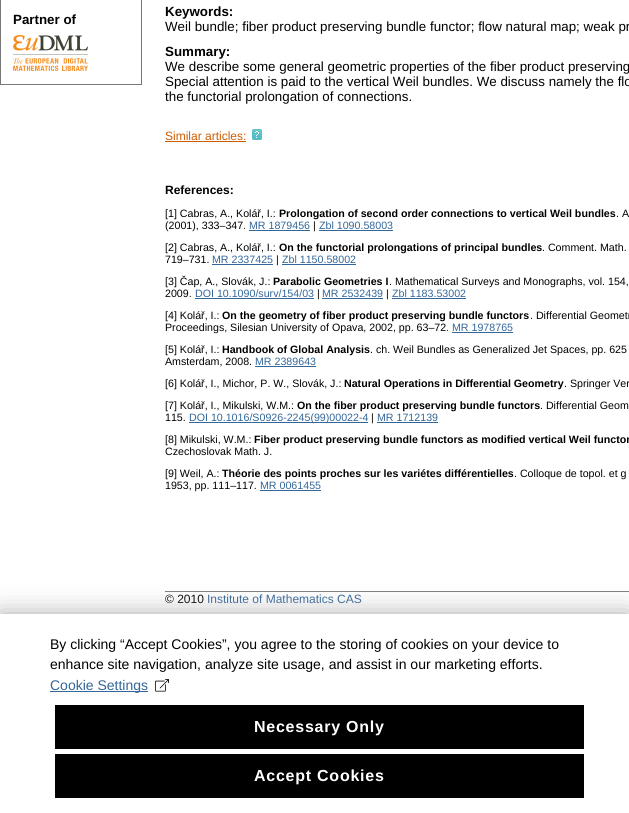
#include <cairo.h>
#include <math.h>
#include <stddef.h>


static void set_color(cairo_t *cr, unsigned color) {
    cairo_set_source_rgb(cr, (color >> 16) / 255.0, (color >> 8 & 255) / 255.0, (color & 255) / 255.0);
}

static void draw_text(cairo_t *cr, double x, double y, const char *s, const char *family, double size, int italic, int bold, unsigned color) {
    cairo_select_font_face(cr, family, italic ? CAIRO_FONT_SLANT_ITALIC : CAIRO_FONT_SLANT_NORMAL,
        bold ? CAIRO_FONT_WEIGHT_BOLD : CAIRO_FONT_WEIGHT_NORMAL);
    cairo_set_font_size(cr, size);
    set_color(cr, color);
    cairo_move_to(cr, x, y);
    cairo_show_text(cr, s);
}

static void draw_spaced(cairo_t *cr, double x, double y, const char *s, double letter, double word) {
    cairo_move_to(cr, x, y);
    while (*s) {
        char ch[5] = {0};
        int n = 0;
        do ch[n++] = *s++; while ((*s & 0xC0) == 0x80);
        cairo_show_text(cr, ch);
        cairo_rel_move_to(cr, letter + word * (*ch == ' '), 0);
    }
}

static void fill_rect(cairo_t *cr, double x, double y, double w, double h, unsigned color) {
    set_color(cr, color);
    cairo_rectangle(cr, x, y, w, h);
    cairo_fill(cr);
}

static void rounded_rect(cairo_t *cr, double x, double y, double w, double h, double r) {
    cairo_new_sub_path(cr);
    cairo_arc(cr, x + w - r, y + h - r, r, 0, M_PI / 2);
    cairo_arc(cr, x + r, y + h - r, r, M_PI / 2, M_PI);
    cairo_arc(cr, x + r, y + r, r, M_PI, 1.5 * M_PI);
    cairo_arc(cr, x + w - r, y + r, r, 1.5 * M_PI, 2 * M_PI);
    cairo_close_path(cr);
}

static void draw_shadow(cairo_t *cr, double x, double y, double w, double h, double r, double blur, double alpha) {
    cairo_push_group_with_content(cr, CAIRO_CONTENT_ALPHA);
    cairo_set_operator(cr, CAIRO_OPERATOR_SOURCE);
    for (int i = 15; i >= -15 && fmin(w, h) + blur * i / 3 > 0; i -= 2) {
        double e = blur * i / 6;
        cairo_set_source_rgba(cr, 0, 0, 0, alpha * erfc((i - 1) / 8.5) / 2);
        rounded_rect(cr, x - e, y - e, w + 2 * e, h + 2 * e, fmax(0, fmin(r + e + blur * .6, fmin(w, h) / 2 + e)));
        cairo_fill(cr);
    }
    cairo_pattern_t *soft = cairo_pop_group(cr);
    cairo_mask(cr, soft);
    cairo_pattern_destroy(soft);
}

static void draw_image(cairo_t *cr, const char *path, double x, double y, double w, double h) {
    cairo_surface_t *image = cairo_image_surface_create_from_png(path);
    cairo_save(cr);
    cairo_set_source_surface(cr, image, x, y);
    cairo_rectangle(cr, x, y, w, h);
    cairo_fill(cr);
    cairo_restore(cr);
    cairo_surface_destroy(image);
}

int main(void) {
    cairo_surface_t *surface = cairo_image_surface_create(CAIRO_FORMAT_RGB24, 629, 813);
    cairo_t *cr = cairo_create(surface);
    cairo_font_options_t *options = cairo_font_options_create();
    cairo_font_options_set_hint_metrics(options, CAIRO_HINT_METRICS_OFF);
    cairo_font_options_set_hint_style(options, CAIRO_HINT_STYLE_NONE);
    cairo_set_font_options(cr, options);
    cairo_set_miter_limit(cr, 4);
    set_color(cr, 0xFFFFFF);
    cairo_paint(cr);
    cairo_rectangle(cr, 0.5, -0.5, 141, 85);
    set_color(cr, 0x777777);
    cairo_set_line_width(cr, 1);
    cairo_stroke(cr);
    draw_text(cr, 13, 24, "Partner of", "Liberation Sans", 13.35, 0, 1, 0x000000);
    draw_image(cr, "assets/img1.png", 13, 35, 75, 36);
    draw_text(cr, 165, 16, "Keywords:", "Liberation Sans", 13.35, 0, 1, 0x000000);
    draw_text(cr, 165, 31, "Weil bundle; fiber product preserving bundle functor; flow natural map; weak pr", "Liberation Sans", 13.35, 0, 0, 0x000000);
    draw_text(cr, 165, 56, "Summary:", "Liberation Sans", 13.35, 0, 1, 0x000000);
    draw_text(cr, 165, 71, "We describe some general geometric properties of the fiber product preserving", "Liberation Sans", 13.35, 0, 0, 0x000000);
    draw_text(cr, 165, 86, "Special attention is paid to the vertical Weil bundles. We discuss namely the flo", "Liberation Sans", 13.35, 0, 0, 0x000000);
    draw_text(cr, 165, 101, "the functorial prolongation of connections.", "Liberation Sans", 13.35, 0, 0, 0x000000);
    draw_text(cr, 165, 140, "Similar articles:", "Liberation Sans", 12, 0, 0, 0xCD5B00);
    fill_rect(cr, 165, 141, 81, 1, 0xCD5B00);
    draw_image(cr, "assets/img2.png", 252, 129, 10, 11);
    draw_text(cr, 165, 194, "References:", "Liberation Sans", 12, 0, 1, 0x000000);
    draw_text(cr, 165, 217, "[1] Cabras, A., Kolář, I.:", "Liberation Sans", 10.65, 0, 0, 0x000000);
    draw_text(cr, 279, 217, "Prolongation of second order connections to vertical Weil bundles", "Liberation Sans", 10.65, 0, 1, 0x000000);
    draw_text(cr, 616, 217, ". A", "Liberation Sans", 10.65, 0, 0, 0x000000);
    draw_text(cr, 165, 229, "(2001), 333–347.", "Liberation Sans", 10.65, 0, 0, 0x000000);
    draw_text(cr, 249, 229, "MR 1879456", "Liberation Sans", 10.65, 0, 0, 0x336699);
    fill_rect(cr, 249, 230, 61, 1, 0x336699);
    draw_text(cr, 313, 229, "|", "Liberation Sans", 10.65, 0, 0, 0x000000);
    draw_text(cr, 319, 229, "Zbl 1090.58003", "Liberation Sans", 10.65, 0, 0, 0x336699);
    fill_rect(cr, 319, 230, 74, 1, 0x336699);
    draw_text(cr, 165, 251, "[2] Cabras, A., Kolář, I.:", "Liberation Sans", 10.65, 0, 0, 0x000000);
    draw_text(cr, 279, 251, "On the functorial prolongations of principal bundles", "Liberation Sans", 10.65, 0, 1, 0x000000);
    draw_text(cr, 542, 251, ". Comment. Math.", "Liberation Sans", 10.65, 0, 0, 0x000000);
    draw_text(cr, 165, 263, "719–731.", "Liberation Sans", 10.65, 0, 0, 0x000000);
    draw_text(cr, 212, 263, "MR 2337425", "Liberation Sans", 10.65, 0, 0, 0x336699);
    fill_rect(cr, 212, 264, 61, 1, 0x336699);
    draw_text(cr, 276, 263, "|", "Liberation Sans", 10.65, 0, 0, 0x000000);
    draw_text(cr, 282, 263, "Zbl 1150.58002", "Liberation Sans", 10.65, 0, 0, 0x336699);
    fill_rect(cr, 282, 264, 74, 1, 0x336699);
    draw_text(cr, 165, 285, "[3] Čap, A., Slovák, J.:", "Liberation Sans", 10.65, 0, 0, 0x000000);
    draw_text(cr, 273, 285, "Parabolic Geometries I", "Liberation Sans", 10.65, 0, 1, 0x000000);
    draw_text(cr, 389, 285, ". Mathematical Surveys and Monographs, vol. 154,", "Liberation Sans", 10.65, 0, 0, 0x000000);
    draw_text(cr, 165, 297, "2009.", "Liberation Sans", 10.65, 0, 0, 0x000000);
    draw_text(cr, 195, 297, "DOI 10.1090/surv/154/03", "Liberation Sans", 10.65, 0, 0, 0x336699);
    fill_rect(cr, 195, 298, 119, 1, 0x336699);
    draw_text(cr, 317, 297, "|", "Liberation Sans", 10.65, 0, 0, 0x000000);
    draw_text(cr, 322, 297, "MR 2532439", "Liberation Sans", 10.65, 0, 0, 0x336699);
    fill_rect(cr, 322, 298, 61, 1, 0x336699);
    draw_text(cr, 386, 297, "|", "Liberation Sans", 10.65, 0, 0, 0x000000);
    draw_text(cr, 392, 297, "Zbl 1183.53002", "Liberation Sans", 10.65, 0, 0, 0x336699);
    fill_rect(cr, 392, 298, 74, 1, 0x336699);
    draw_text(cr, 165, 319, "[4] Kolář, I.:", "Liberation Sans", 10.65, 0, 0, 0x000000);
    draw_text(cr, 222, 319, "On the geometry of fiber product preserving bundle functors", "Liberation Sans", 10.65, 0, 1, 0x000000);
    draw_text(cr, 530, 319, ". Differential Geometr", "Liberation Sans", 10.65, 0, 0, 0x000000);
    draw_text(cr, 165, 331, "Proceedings, Silesian University of Opava, 2002, pp. 63–72.", "Liberation Sans", 10.65, 0, 0, 0x000000);
    draw_text(cr, 452, 331, "MR 1978765", "Liberation Sans", 10.65, 0, 0, 0x336699);
    fill_rect(cr, 452, 332, 61, 1, 0x336699);
    draw_text(cr, 165, 353, "[5] Kolář, I.:", "Liberation Sans", 10.65, 0, 0, 0x000000);
    draw_text(cr, 222, 353, "Handbook of Global Analysis", "Liberation Sans", 10.65, 0, 1, 0x000000);
    draw_text(cr, 370, 353, ". ch. Weil Bundles as Generalized Jet Spaces, pp. 625", "Liberation Sans", 10.65, 0, 0, 0x000000);
    draw_text(cr, 165, 365, "Amsterdam, 2008.", "Liberation Sans", 10.65, 0, 0, 0x000000);
    draw_text(cr, 255, 365, "MR 2389643", "Liberation Sans", 10.65, 0, 0, 0x336699);
    fill_rect(cr, 255, 366, 61, 1, 0x336699);
    draw_text(cr, 165, 387, "[6] Kolář, I., Michor, P. W., Slovák, J.:", "Liberation Sans", 10.65, 0, 0, 0x000000);
    draw_text(cr, 344, 387, "Natural Operations in Differential Geometry", "Liberation Sans", 10.65, 0, 1, 0x000000);
    draw_text(cr, 564, 387, ". Springer Ver", "Liberation Sans", 10.65, 0, 0, 0x000000);
    draw_text(cr, 165, 409, "[7] Kolář, I., Mikulski, W.M.:", "Liberation Sans", 10.65, 0, 0, 0x000000);
    draw_text(cr, 297, 409, "On the fiber product preserving bundle functors", "Liberation Sans", 10.65, 0, 1, 0x000000);
    draw_text(cr, 540, 409, ". Differential Geom", "Liberation Sans", 10.65, 0, 0, 0x000000);
    draw_text(cr, 165, 421, "115.", "Liberation Sans", 10.65, 0, 0, 0x000000);
    fill_rect(cr, 189, 422, 179, 1, 0x336699);
    draw_text(cr, 189, 421, "DOI 10.1016/S0926-2245(99)00022-4", "Liberation Sans", 10.65, 0, 0, 0x336699);
    draw_text(cr, 371, 421, "|", "Liberation Sans", 10.65, 0, 0, 0x000000);
    draw_text(cr, 377, 421, "MR 1712139", "Liberation Sans", 10.65, 0, 0, 0x336699);
    fill_rect(cr, 377, 422, 61, 1, 0x336699);
    draw_text(cr, 165, 443, "[8] Mikulski, W.M.:", "Liberation Sans", 10.65, 0, 0, 0x000000);
    draw_text(cr, 254, 443, "Fiber product preserving bundle functors as modified vertical Weil functor", "Liberation Sans", 10.65, 0, 1, 0x000000);
    draw_text(cr, 165, 455, "Czechoslovak Math. J.", "Liberation Sans", 10.65, 0, 0, 0x000000);
    draw_text(cr, 165, 477, "[9] Weil, A.:", "Liberation Sans", 10.65, 0, 0, 0x000000);
    draw_text(cr, 222, 477, "Théorie des points proches sur les variétes différentielles", "Liberation Sans", 10.65, 0, 1, 0x000000);
    draw_text(cr, 514, 477, ". Colloque de topol. et g", "Liberation Sans", 10.65, 0, 0, 0x000000);
    draw_text(cr, 165, 489, "1953, pp. 111–117.", "Liberation Sans", 10.65, 0, 0, 0x000000);
    draw_text(cr, 260, 489, "MR 0061455", "Liberation Sans", 10.65, 0, 0, 0x336699);
    fill_rect(cr, 260, 490, 61, 1, 0x336699);
    fill_rect(cr, 165, 591, 464, 1, 0x808080);
    draw_text(cr, 165, 603, "© 2010", "Liberation Sans", 12, 0, 0, 0x000000);
    draw_text(cr, 207, 603, "Institute of Mathematics CAS", "Liberation Sans", 12, 0, 0, 0x336699);
    set_color(cr, 0xAAAAAA);
    draw_shadow(cr, 0, 614, 629, 199, 0, 12.5, 1);
    fill_rect(cr, 0, 614, 629, 199, 0xFFFFFF);
    draw_text(cr, 50, 649, "By clicking “Accept Cookies”, you agree to the storing of cookies on your device to", "Liberation Sans", 14, 0, 0, 0x000000);
    draw_text(cr, 50, 669, "enhance site navigation, analyze site usage, and assist in our marketing efforts.", "Liberation Sans", 14, 0, 0, 0x000000);
    fill_rect(cr, 50, 691, 98, 1, 0x336699);
    draw_text(cr, 50, 690, "Cookie Settings", "Liberation Sans", 14, 0, 0, 0x336699);
    draw_image(cr, "assets/img3.png", 155, 679, 14, 13);
    fill_rect(cr, 55, 705, 529, 44, 0x000000);
    cairo_select_font_face(cr, "Liberation Sans", CAIRO_FONT_SLANT_NORMAL, CAIRO_FONT_WEIGHT_BOLD);
    cairo_set_font_size(cr, 16);
    set_color(cr, 0xFFFFFF);
    draw_spaced(cr, 254, 732, "Necessary Only", 0.75, 0);
    fill_rect(cr, 55, 754, 529, 44, 0x000000);
    set_color(cr, 0xFFFFFF);
    draw_spaced(cr, 254, 781, "Accept Cookies", 0.75, 0);
    cairo_surface_write_to_png(surface, "output.png");
    cairo_font_options_destroy(options);
    cairo_destroy(cr);
    cairo_surface_destroy(surface);
    return 0;
}
